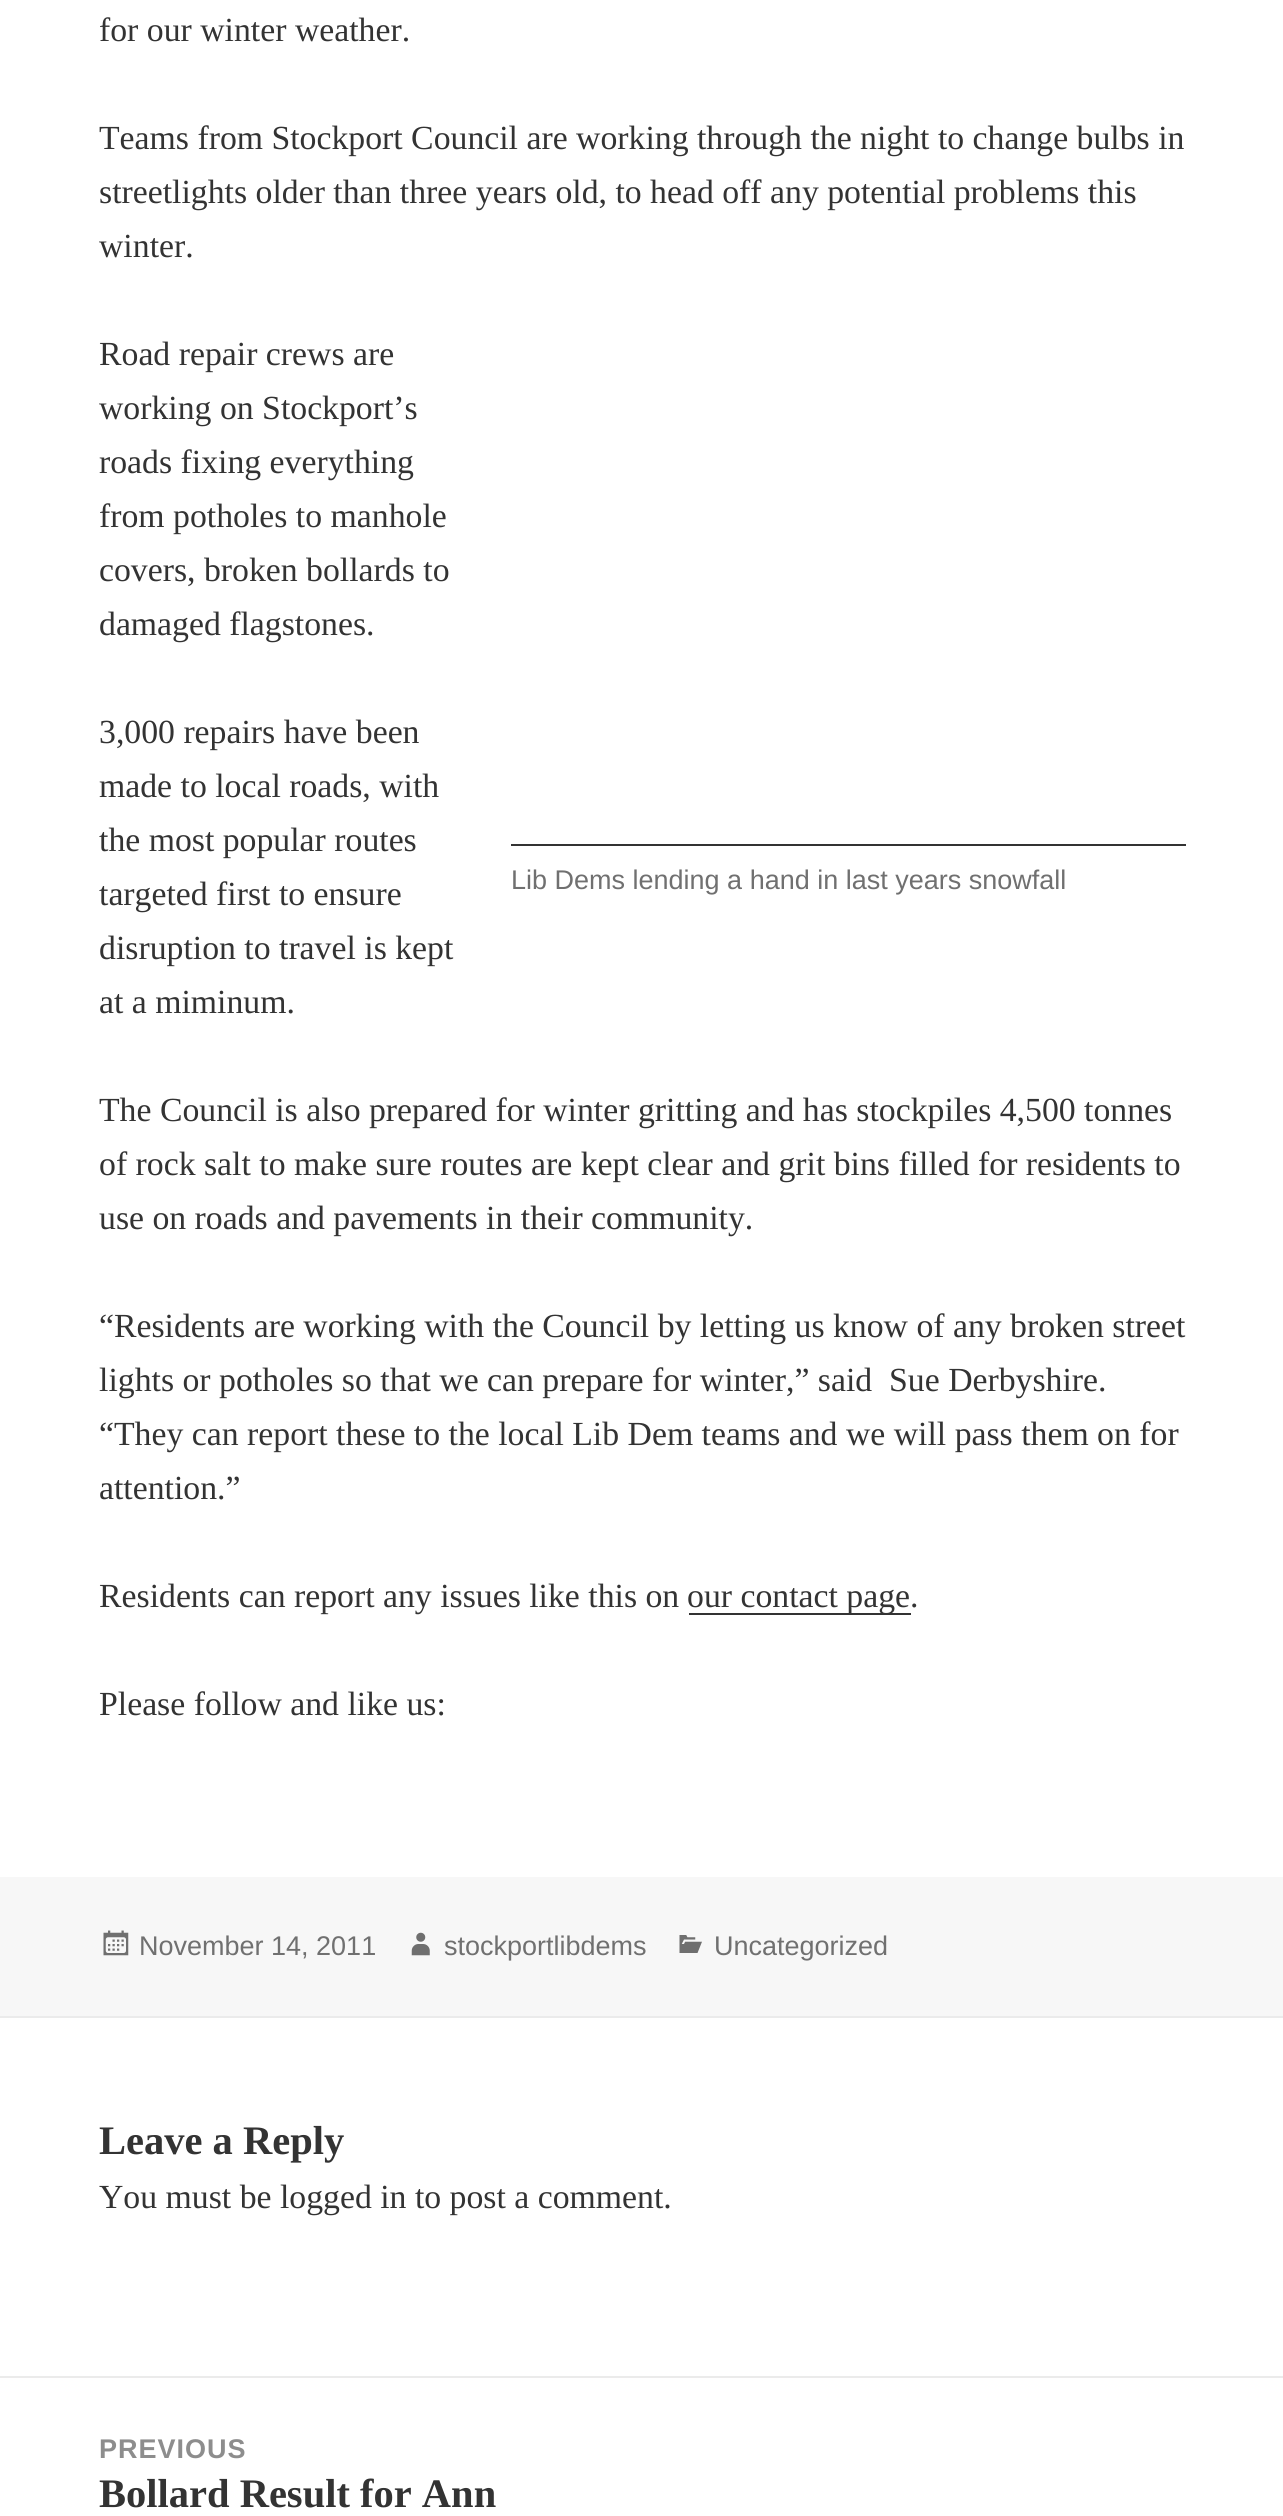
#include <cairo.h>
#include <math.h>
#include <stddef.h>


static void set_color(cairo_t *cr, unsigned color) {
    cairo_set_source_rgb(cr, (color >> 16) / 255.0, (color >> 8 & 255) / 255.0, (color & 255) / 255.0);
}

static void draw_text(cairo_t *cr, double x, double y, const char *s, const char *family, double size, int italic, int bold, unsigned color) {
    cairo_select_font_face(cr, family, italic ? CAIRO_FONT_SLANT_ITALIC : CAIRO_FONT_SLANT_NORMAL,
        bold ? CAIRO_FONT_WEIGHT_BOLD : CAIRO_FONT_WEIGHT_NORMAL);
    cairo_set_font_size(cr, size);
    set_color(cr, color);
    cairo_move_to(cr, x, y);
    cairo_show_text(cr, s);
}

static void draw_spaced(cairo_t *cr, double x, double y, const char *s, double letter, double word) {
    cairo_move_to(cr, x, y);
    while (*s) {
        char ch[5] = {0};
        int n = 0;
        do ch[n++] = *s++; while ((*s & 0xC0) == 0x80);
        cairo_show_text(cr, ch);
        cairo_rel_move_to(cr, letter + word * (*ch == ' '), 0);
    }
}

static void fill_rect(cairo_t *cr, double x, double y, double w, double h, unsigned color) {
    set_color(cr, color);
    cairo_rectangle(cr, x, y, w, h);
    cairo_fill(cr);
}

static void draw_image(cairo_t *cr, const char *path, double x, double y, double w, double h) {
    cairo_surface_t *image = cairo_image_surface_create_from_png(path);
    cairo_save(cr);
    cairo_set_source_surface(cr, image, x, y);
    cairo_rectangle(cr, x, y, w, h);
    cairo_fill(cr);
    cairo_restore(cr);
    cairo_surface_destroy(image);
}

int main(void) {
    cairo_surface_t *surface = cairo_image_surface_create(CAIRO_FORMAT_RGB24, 1283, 2516);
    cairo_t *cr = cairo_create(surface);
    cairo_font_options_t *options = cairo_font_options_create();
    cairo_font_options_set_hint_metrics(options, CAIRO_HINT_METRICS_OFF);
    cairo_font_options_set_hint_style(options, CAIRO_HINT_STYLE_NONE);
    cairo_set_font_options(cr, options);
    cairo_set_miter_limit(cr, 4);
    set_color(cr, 0xFFFFFF);
    cairo_paint(cr);
    draw_text(cr, 99, 41, "for our winter weather.", "Liberation Serif", 33.75, 0, 0, 0x333333);
    draw_text(cr, 99, 149, "Teams from Stockport Council are working through the night to change bulbs in", "Liberation Serif", 33.75, 0, 0, 0x333333);
    draw_text(cr, 99, 203, "streetlights older than three years old, to head off any potential problems this", "Liberation Serif", 33.75, 0, 0, 0x333333);
    draw_text(cr, 99, 257, "winter.", "Liberation Serif", 33.75, 0, 0, 0x333333);
    draw_text(cr, 99, 365, "Road repair crews are", "Liberation Serif", 33.75, 0, 0, 0x333333);
    draw_text(cr, 99, 419, "working on Stockport’s", "Liberation Serif", 33.75, 0, 0, 0x333333);
    draw_text(cr, 99, 473, "roads fixing everything", "Liberation Serif", 33.75, 0, 0, 0x333333);
    draw_text(cr, 99, 527, "from potholes to manhole", "Liberation Serif", 33.75, 0, 0, 0x333333);
    draw_text(cr, 99, 581, "covers, broken bollards to", "Liberation Serif", 33.75, 0, 0, 0x333333);
    draw_text(cr, 99, 635, "damaged flagstones.", "Liberation Serif", 33.75, 0, 0, 0x333333);
    draw_text(cr, 99, 743, "3,000 repairs have been", "Liberation Serif", 33.75, 0, 0, 0x333333);
    draw_text(cr, 99, 797, "made to local roads, with", "Liberation Serif", 33.75, 0, 0, 0x333333);
    draw_text(cr, 99, 851, "the most popular routes", "Liberation Serif", 33.75, 0, 0, 0x333333);
    draw_text(cr, 99, 905, "targeted first to ensure", "Liberation Serif", 33.75, 0, 0, 0x333333);
    draw_text(cr, 99, 959, "disruption to travel is kept", "Liberation Serif", 33.75, 0, 0, 0x333333);
    draw_text(cr, 99, 1013, "at a miminum.", "Liberation Serif", 33.75, 0, 0, 0x333333);
    fill_rect(cr, 511, 844, 675, 2, 0x333333);
    draw_text(cr, 511, 889, "Lib Dems lending a hand in last years snowfall", "Liberation Sans", 27, 0, 0, 0x707070);
    draw_text(cr, 99, 1121, "The Council is also prepared for winter gritting and has stockpiles 4,500 tonnes", "Liberation Serif", 33.75, 0, 0, 0x333333);
    draw_text(cr, 99, 1175, "of rock salt to make sure routes are kept clear and grit bins filled for residents to", "Liberation Serif", 33.75, 0, 0, 0x333333);
    draw_text(cr, 99, 1229, "use on roads and pavements in their community.", "Liberation Serif", 33.75, 0, 0, 0x333333);
    draw_text(cr, 99, 1337, "“Residents are working with the Council by letting us know of any broken street", "Liberation Serif", 33.75, 0, 0, 0x333333);
    draw_text(cr, 99, 1391, "lights or potholes so that we can prepare for winter,” said  Sue Derbyshire.", "Liberation Serif", 33.75, 0, 0, 0x333333);
    draw_text(cr, 99, 1445, "“They can report these to the local Lib Dem teams and we will pass them on for", "Liberation Serif", 33.75, 0, 0, 0x333333);
    draw_text(cr, 99, 1499, "attention.”", "Liberation Serif", 33.75, 0, 0, 0x333333);
    draw_text(cr, 99, 1607, "Residents can report any issues like this on", "Liberation Serif", 33.75, 0, 0, 0x333333);
    fill_rect(cr, 689, 1613, 222, 2, 0x333333);
    draw_text(cr, 687, 1607, "our contact page.", "Liberation Serif", 33.75, 0, 0, 0x333333);
    draw_text(cr, 99, 1715, "Please follow and like us:", "Liberation Serif", 33.75, 0, 0, 0x333333);
    fill_rect(cr, 0, 1877, 1283, 139, 0xF7F7F7);
    draw_image(cr, "assets/img1.png", 103, 1930, 26, 26);
    draw_text(cr, 139, 1955, "November 14, 2011", "Liberation Sans", 27, 0, 0, 0x707070);
    draw_image(cr, "assets/img2.png", 411, 1932, 19, 24);
    draw_text(cr, 444, 1955, "stockportlibdems", "Liberation Sans", 27, 0, 0, 0x707070);
    draw_image(cr, "assets/img3.png", 679, 1935, 23, 18);
    draw_text(cr, 714, 1955, "Uncategorized", "Liberation Sans", 27, 0, 0, 0x707070);
    fill_rect(cr, 0, 2016, 1283, 2, 0xEBEBEB);
    draw_text(cr, 99, 2154, "Leave a Reply", "Liberation Serif", 40.5, 0, 1, 0x333333);
    draw_text(cr, 99, 2208, "You must be logged in to post a comment.", "Liberation Serif", 33.75, 0, 0, 0x333333);
    fill_rect(cr, 0, 2376, 1283, 2, 0xEBEBEB);
    cairo_select_font_face(cr, "Liberation Sans", CAIRO_FONT_SLANT_NORMAL, CAIRO_FONT_WEIGHT_BOLD);
    cairo_set_font_size(cr, 27);
    set_color(cr, 0x8D8D8D);
    draw_spaced(cr, 99, 2458, "PREVIOUS", 1, 0);
    draw_text(cr, 99, 2507, "Bollard Result for Ann", "Liberation Serif", 40.5, 0, 1, 0x333333);
    cairo_surface_write_to_png(surface, "output.png");
    cairo_font_options_destroy(options);
    cairo_destroy(cr);
    cairo_surface_destroy(surface);
    return 0;
}
